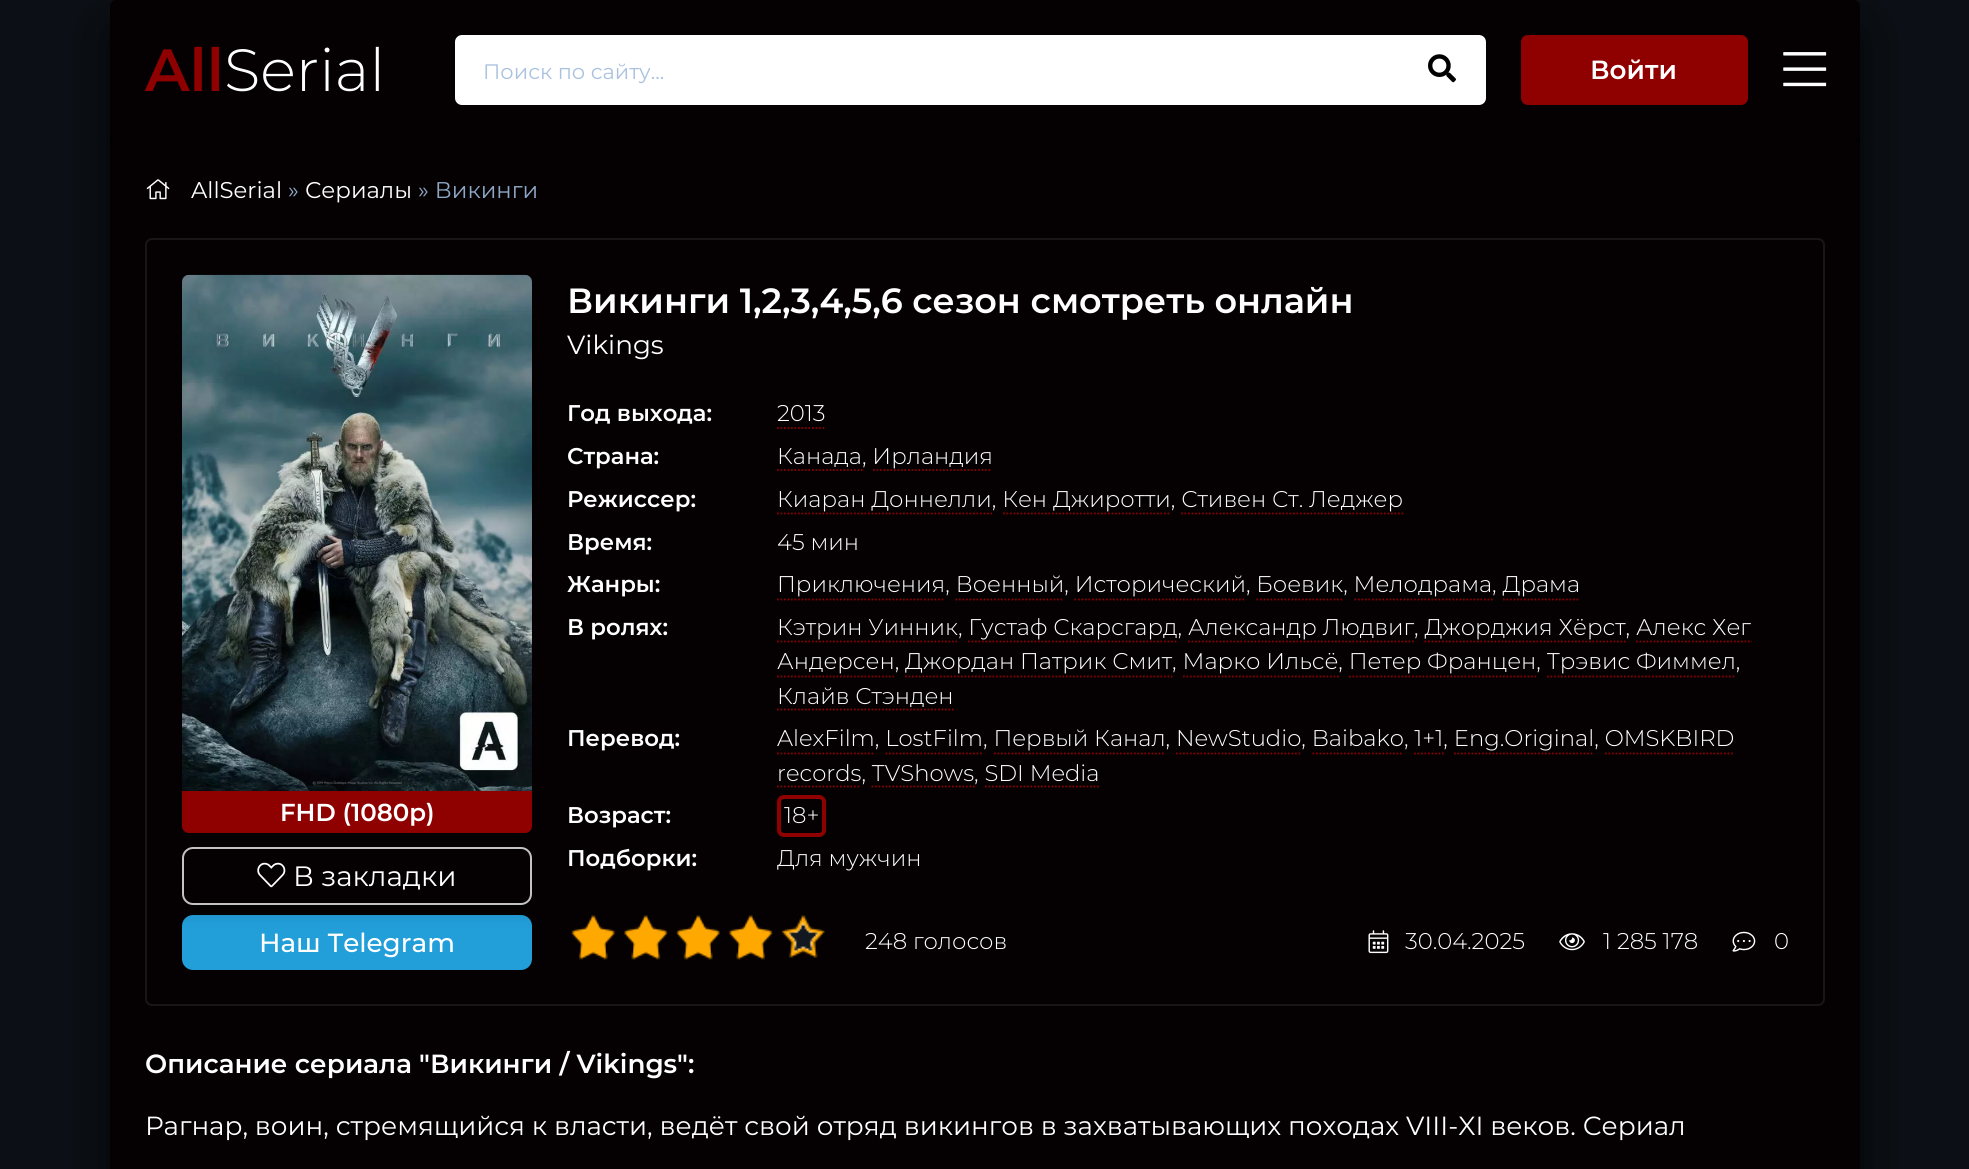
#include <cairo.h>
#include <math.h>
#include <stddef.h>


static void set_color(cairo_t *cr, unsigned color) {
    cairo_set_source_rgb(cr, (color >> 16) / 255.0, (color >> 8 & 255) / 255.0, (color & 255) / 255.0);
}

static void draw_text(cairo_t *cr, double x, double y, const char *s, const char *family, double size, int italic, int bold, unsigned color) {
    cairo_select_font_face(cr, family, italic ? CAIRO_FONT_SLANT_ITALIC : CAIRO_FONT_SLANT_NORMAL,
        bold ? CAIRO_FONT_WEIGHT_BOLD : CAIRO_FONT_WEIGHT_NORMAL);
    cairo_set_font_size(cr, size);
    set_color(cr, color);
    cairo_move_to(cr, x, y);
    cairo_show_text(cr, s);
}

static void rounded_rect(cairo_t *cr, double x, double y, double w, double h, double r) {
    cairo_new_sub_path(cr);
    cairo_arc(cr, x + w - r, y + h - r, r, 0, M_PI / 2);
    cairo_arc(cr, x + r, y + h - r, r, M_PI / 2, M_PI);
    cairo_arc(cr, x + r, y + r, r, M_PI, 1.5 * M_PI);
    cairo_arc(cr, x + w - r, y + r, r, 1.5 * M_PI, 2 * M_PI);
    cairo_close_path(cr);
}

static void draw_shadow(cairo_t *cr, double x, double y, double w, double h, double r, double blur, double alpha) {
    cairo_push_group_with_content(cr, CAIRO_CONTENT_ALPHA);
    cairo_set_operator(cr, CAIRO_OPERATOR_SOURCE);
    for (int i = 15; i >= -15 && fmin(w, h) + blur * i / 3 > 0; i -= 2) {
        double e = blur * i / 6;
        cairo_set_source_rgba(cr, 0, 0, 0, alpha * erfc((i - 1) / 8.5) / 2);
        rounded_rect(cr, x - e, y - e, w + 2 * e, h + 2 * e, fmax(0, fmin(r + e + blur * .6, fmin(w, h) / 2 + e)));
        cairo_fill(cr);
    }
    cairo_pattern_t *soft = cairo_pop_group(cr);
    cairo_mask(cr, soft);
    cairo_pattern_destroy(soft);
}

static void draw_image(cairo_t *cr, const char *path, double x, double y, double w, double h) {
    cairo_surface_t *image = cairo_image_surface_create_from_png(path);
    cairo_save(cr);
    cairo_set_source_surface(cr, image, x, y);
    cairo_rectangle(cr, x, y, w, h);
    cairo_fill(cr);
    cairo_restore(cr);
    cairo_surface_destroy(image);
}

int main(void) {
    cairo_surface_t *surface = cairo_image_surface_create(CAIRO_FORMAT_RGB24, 1969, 1169);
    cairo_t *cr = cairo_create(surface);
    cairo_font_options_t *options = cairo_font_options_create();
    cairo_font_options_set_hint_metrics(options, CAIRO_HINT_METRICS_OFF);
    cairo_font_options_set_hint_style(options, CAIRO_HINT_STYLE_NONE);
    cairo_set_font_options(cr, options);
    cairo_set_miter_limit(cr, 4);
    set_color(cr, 0x0C1016);
    cairo_paint(cr);
    set_color(cr, 0x000000);
    draw_shadow(cr, 110, 26, 1750, 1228, 7, 26, 0.8);
    set_color(cr, 0x000000);
    rounded_rect(cr, 110, 0, 1750, 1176, 7);
    cairo_fill(cr);
    set_color(cr, 0x050102);
    rounded_rect(cr, 110, 0, 1750, 140, 7);
    cairo_fill(cr);
    draw_text(cr, 145, 91, "All", "Montserrat SemiBold", 59.5, 0, 0, 0x8F0000);
    draw_text(cr, 224, 91, "Serial", "Montserrat Light", 59.5, 0, 0, 0xFFFFFF);
    rounded_rect(cr, 455, 35, 1031, 70, 7);
    cairo_fill(cr);
    draw_text(cr, 483, 79, "Поиск по сайту...", "Montserrat", 21, 0, 0, 0xAAC2E0);
    draw_image(cr, "assets/img1.png", 1428, 54, 28, 29);
    set_color(cr, 0x8F0000);
    rounded_rect(cr, 1521, 35, 227, 70, 7);
    cairo_fill(cr);
    draw_text(cr, 1590, 79, "Войти", "Montserrat SemiBold", 26.25, 0, 0, 0xFFFFFF);
    draw_image(cr, "assets/img2.png", 1783, 52, 44, 35);
    set_color(cr, 0x050102);
    rounded_rect(cr, 110, 140, 1750, 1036, 7);
    cairo_fill(cr);
    draw_image(cr, "assets/img3.png", 146, 179, 24, 21);
    draw_text(cr, 191, 198, "AllSerial", "Montserrat", 22.75, 0, 0, 0xFFFFFF);
    draw_text(cr, 288, 198, "»", "Montserrat", 22.75, 0, 0, 0x8FA7C6);
    draw_text(cr, 305, 198, "Сериалы", "Montserrat", 22.75, 0, 0, 0xFFFFFF);
    draw_text(cr, 418, 198, "» Викинги", "Montserrat", 22.75, 0, 0, 0x8FA7C6);
    rounded_rect(cr, 146, 239, 1678, 766, 6);
    set_color(cr, 0x181515);
    cairo_stroke(cr);
    set_color(cr, 0x229ED9);
    rounded_rect(cr, 182, 915, 350, 55, 11);
    cairo_fill(cr);
    cairo_save(cr);
    cairo_set_fill_rule(cr, CAIRO_FILL_RULE_EVEN_ODD);
    cairo_new_path(cr);
    cairo_move_to(cr, 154, 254);
    cairo_line_to(cr, 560, 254);
    cairo_line_to(cr, 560, 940);
    cairo_line_to(cr, 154, 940);
    cairo_close_path(cr);
    cairo_move_to(cr, 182, 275);
    cairo_line_to(cr, 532, 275);
    cairo_line_to(cr, 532, 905);
    cairo_line_to(cr, 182, 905);
    cairo_close_path(cr);
    cairo_clip(cr);
    set_color(cr, 0x000000);
    draw_shadow(cr, 182, 282, 350, 630, 0, 9, 0.15);
    cairo_restore(cr);
    draw_image(cr, "assets/img4.png", 182, 274, 350, 517);
    set_color(cr, 0x8F0000);
    cairo_new_path(cr);
    cairo_move_to(cr, 182, 791);
    cairo_line_to(cr, 532, 791);
    cairo_line_to(cr, 532, 826);
    cairo_curve_to(cr, 532, 830, 529, 833, 525, 833);
    cairo_line_to(cr, 189, 833);
    cairo_curve_to(cr, 185, 833, 182, 830, 182, 826);
    cairo_close_path(cr);
    cairo_fill(cr);
    draw_text(cr, 280, 821, "FHD (1080p)", "Montserrat SemiBold", 24.5, 0, 0, 0xFFFFFF);
    rounded_rect(cr, 183, 848, 348, 56, 10);
    set_color(cr, 0xC3C3C3);
    cairo_stroke(cr);
    draw_image(cr, "assets/img5.png", 257, 862, 29, 26);
    draw_text(cr, 293, 886, "В закладки", "Montserrat", 28, 0, 0, 0xFFFFFF);
    draw_text(cr, 259, 952, "Наш Telegram", "Montserrat Medium", 26.25, 0, 0, 0xFFFFFF);
    draw_text(cr, 567, 313, "Викинги 1,2,3,4,5,6 сезон смотреть онлайн", "Montserrat SemiBold", 35, 0, 0, 0xFFFFFF);
    draw_text(cr, 567, 354, "Vikings", "Montserrat", 26.25, 0, 0, 0xFFFFFF);
    draw_text(cr, 567, 421, "Год выхода:", "Montserrat SemiBold", 22.75, 0, 0, 0xFFFFFF);
    draw_text(cr, 777, 421, "2013", "Montserrat Light", 22.75, 0, 0, 0xFFFFFF);
    cairo_new_path(cr);
    cairo_move_to(cr, 777, 428);
    cairo_line_to(cr, 826, 428);
    set_color(cr, 0x860001);
    cairo_set_line_width(cr, 1.8);
    cairo_set_dash(cr, (double[]){1.75, 1.75}, 2, 0);
    cairo_stroke(cr);
    draw_text(cr, 567, 464, "Страна:", "Montserrat SemiBold", 22.75, 0, 0, 0xFFFFFF);
    draw_text(cr, 777, 464, "Канада, Ирландия", "Montserrat Light", 22.75, 0, 0, 0xFFFFFF);
    cairo_new_path(cr);
    cairo_move_to(cr, 777, 470);
    cairo_line_to(cr, 863, 470);
    set_color(cr, 0x860001);
    cairo_stroke(cr);
    cairo_new_path(cr);
    cairo_move_to(cr, 873, 470);
    cairo_line_to(cr, 992, 470);
    cairo_stroke(cr);
    draw_text(cr, 567, 507, "Режиссер:", "Montserrat SemiBold", 22.75, 0, 0, 0xFFFFFF);
    draw_text(cr, 777, 507, "Киаран Доннелли, Кен Джиротти, Стивен Ст. Леджер", "Montserrat Light", 22.75, 0, 0, 0xFFFFFF);
    cairo_new_path(cr);
    cairo_move_to(cr, 777, 513.5);
    cairo_line_to(cr, 992, 513.5);
    set_color(cr, 0x860001);
    cairo_stroke(cr);
    cairo_new_path(cr);
    cairo_move_to(cr, 1003, 513.5);
    cairo_line_to(cr, 1171, 513.5);
    cairo_stroke(cr);
    cairo_new_path(cr);
    cairo_move_to(cr, 1181, 513.5);
    cairo_line_to(cr, 1403.5, 513.5);
    cairo_stroke(cr);
    draw_text(cr, 567, 550, "Время:", "Montserrat SemiBold", 22.75, 0, 0, 0xFFFFFF);
    draw_text(cr, 777, 550, "45 мин", "Montserrat Light", 22.75, 0, 0, 0xFFFFFF);
    draw_text(cr, 567, 592, "Жанры:", "Montserrat SemiBold", 22.75, 0, 0, 0xFFFFFF);
    draw_text(cr, 777, 592, "Приключения, Военный, Исторический, Боевик, Мелодрама, Драма", "Montserrat Light", 22.75, 0, 0, 0xFFFFFF);
    cairo_new_path(cr);
    cairo_move_to(cr, 777, 599.5);
    cairo_line_to(cr, 945, 599.5);
    set_color(cr, 0x860001);
    cairo_stroke(cr);
    cairo_new_path(cr);
    cairo_move_to(cr, 955.5, 599.5);
    cairo_line_to(cr, 1064, 599.5);
    cairo_stroke(cr);
    cairo_new_path(cr);
    cairo_move_to(cr, 1074.5, 599.5);
    cairo_line_to(cr, 1246, 599.5);
    cairo_stroke(cr);
    cairo_new_path(cr);
    cairo_move_to(cr, 1256.5, 599.5);
    cairo_line_to(cr, 1344, 599.5);
    cairo_stroke(cr);
    cairo_new_path(cr);
    cairo_move_to(cr, 1354.5, 599.5);
    cairo_line_to(cr, 1493, 599.5);
    cairo_stroke(cr);
    cairo_new_path(cr);
    cairo_move_to(cr, 1503, 599.5);
    cairo_line_to(cr, 1580, 599.5);
    cairo_stroke(cr);
    draw_text(cr, 567, 635, "В ролях:", "Montserrat SemiBold", 22.75, 0, 0, 0xFFFFFF);
    draw_text(cr, 777, 635, "Кэтрин Уинник, Густаф Скарсгард, Александр Людвиг, Джорджия Хёрст, Алекс Хег", "Montserrat Light", 22.75, 0, 0, 0xFFFFFF);
    cairo_new_path(cr);
    cairo_move_to(cr, 777, 641.5);
    cairo_line_to(cr, 957, 641.5);
    set_color(cr, 0x860001);
    cairo_stroke(cr);
    cairo_new_path(cr);
    cairo_move_to(cr, 968, 641.5);
    cairo_line_to(cr, 1178, 641.5);
    cairo_stroke(cr);
    cairo_new_path(cr);
    cairo_move_to(cr, 1188, 641.5);
    cairo_line_to(cr, 1414, 641.5);
    cairo_stroke(cr);
    cairo_new_path(cr);
    cairo_move_to(cr, 1424.5, 641.5);
    cairo_line_to(cr, 1626, 641.5);
    cairo_stroke(cr);
    draw_text(cr, 777, 669, "Андерсен, Джордан Патрик Смит, Марко Ильсё, Петер Францен, Трэвис Фиммел,", "Montserrat Light", 22.75, 0, 0, 0xFFFFFF);
    cairo_new_path(cr);
    cairo_move_to(cr, 1636, 641.5);
    cairo_line_to(cr, 1752, 641.5);
    set_color(cr, 0x860001);
    cairo_stroke(cr);
    cairo_new_path(cr);
    cairo_move_to(cr, 777, 676.5);
    cairo_line_to(cr, 894, 676.5);
    cairo_stroke(cr);
    cairo_new_path(cr);
    cairo_move_to(cr, 905, 676.5);
    cairo_line_to(cr, 1172.5, 676.5);
    cairo_stroke(cr);
    cairo_new_path(cr);
    cairo_move_to(cr, 1183, 676.5);
    cairo_line_to(cr, 1339, 676.5);
    cairo_stroke(cr);
    cairo_new_path(cr);
    cairo_move_to(cr, 1349, 676.5);
    cairo_line_to(cr, 1536.5, 676.5);
    cairo_stroke(cr);
    cairo_new_path(cr);
    cairo_move_to(cr, 1547, 676.5);
    cairo_line_to(cr, 1736, 676.5);
    cairo_stroke(cr);
    draw_text(cr, 777, 704, "Клайв Стэнден", "Montserrat Light", 22.75, 0, 0, 0xFFFFFF);
    cairo_new_path(cr);
    cairo_move_to(cr, 777, 709.5);
    cairo_line_to(cr, 954, 709.5);
    set_color(cr, 0x860001);
    cairo_stroke(cr);
    draw_text(cr, 567, 746, "Перевод:", "Montserrat SemiBold", 22.75, 0, 0, 0xFFFFFF);
    draw_text(cr, 777, 746, "AlexFilm, LostFilm, Первый Канал, NewStudio, Baibako, 1+1, Eng.Original, OMSKBIRD", "Montserrat Light", 22.75, 0, 0, 0xFFFFFF);
    cairo_new_path(cr);
    cairo_move_to(cr, 777, 753.5);
    cairo_line_to(cr, 875, 753.5);
    set_color(cr, 0x860001);
    cairo_stroke(cr);
    cairo_new_path(cr);
    cairo_move_to(cr, 885.5, 753.5);
    cairo_line_to(cr, 983.5, 753.5);
    cairo_stroke(cr);
    cairo_new_path(cr);
    cairo_move_to(cr, 994, 753.5);
    cairo_line_to(cr, 1165.5, 753.5);
    cairo_stroke(cr);
    cairo_new_path(cr);
    cairo_move_to(cr, 1176, 753.5);
    cairo_line_to(cr, 1302, 753.5);
    cairo_stroke(cr);
    cairo_new_path(cr);
    cairo_move_to(cr, 1312.5, 753.5);
    cairo_line_to(cr, 1403.5, 753.5);
    cairo_stroke(cr);
    cairo_new_path(cr);
    cairo_move_to(cr, 1414, 753.5);
    cairo_line_to(cr, 1444, 753.5);
    cairo_stroke(cr);
    cairo_new_path(cr);
    cairo_move_to(cr, 1454, 753.5);
    cairo_line_to(cr, 1594, 753.5);
    cairo_stroke(cr);
    draw_text(cr, 777, 781, "records, TVShows, SDI Media", "Montserrat Light", 22.75, 0, 0, 0xFFFFFF);
    cairo_new_path(cr);
    cairo_move_to(cr, 1605, 753.5);
    cairo_line_to(cr, 1734, 753.5);
    set_color(cr, 0x860001);
    cairo_stroke(cr);
    cairo_new_path(cr);
    cairo_move_to(cr, 777, 786.5);
    cairo_line_to(cr, 861, 786.5);
    cairo_stroke(cr);
    cairo_new_path(cr);
    cairo_move_to(cr, 871.5, 786.5);
    cairo_line_to(cr, 975, 786.5);
    cairo_stroke(cr);
    cairo_new_path(cr);
    cairo_move_to(cr, 985, 786.5);
    cairo_line_to(cr, 1099, 786.5);
    cairo_stroke(cr);
    draw_text(cr, 567, 823, "Возраст:", "Montserrat SemiBold", 22.75, 0, 0, 0xFFFFFF);
    rounded_rect(cr, 779, 797, 45, 38, 5);
    set_color(cr, 0x8F0000);
    cairo_set_line_width(cr, 4);
    cairo_set_dash(cr, NULL, 0, 0);
    cairo_stroke(cr);
    draw_text(cr, 784, 823, "18+", "Montserrat Light", 22.75, 0, 0, 0xFFFFFF);
    draw_text(cr, 567, 866, "Подборки:", "Montserrat SemiBold", 22.75, 0, 0, 0xFFFFFF);
    draw_text(cr, 777, 866, "Для мужчин", "Montserrat Light", 22.75, 0, 0, 0xFFFFFF);
    draw_image(cr, "assets/img6.png", 571, 915, 254, 43);
    draw_image(cr, "assets/img7.png", 571, 916, 202, 44);
    draw_text(cr, 865, 949, "248 голосов", "Montserrat Light", 22.75, 0, 0, 0xFFFFFF);
    draw_image(cr, "assets/img8.png", 1368, 930, 21, 24);
    draw_text(cr, 1405, 949, "30.04.2025", "Montserrat Light", 22.75, 0, 0, 0xFFFFFF);
    draw_image(cr, "assets/img9.png", 1559, 933, 26, 18);
    draw_text(cr, 1603, 949, "1 285 178", "Montserrat Light", 22.75, 0, 0, 0xFFFFFF);
    draw_image(cr, "assets/img10.png", 1732, 931, 24, 21);
    draw_text(cr, 1774, 949, "0", "Montserrat Light", 22.75, 0, 0, 0xFFFFFF);
    draw_text(cr, 145, 1073, "Описание сериала \"Викинги / Vikings\":", "Montserrat SemiBold", 26.25, 0, 0, 0xFFFFFF);
    draw_text(cr, 145, 1135, "Рагнар, воин, стремящийся к власти, ведёт свой отряд викингов в захватывающих походах VIII-XI веков. Сериал", "Montserrat", 26.25, 0, 0, 0xFFFFFF);
    cairo_surface_write_to_png(surface, "output.png");
    cairo_font_options_destroy(options);
    cairo_destroy(cr);
    cairo_surface_destroy(surface);
    return 0;
}
